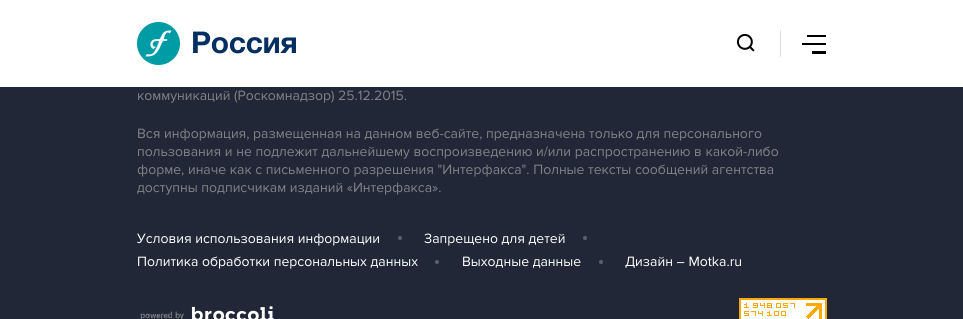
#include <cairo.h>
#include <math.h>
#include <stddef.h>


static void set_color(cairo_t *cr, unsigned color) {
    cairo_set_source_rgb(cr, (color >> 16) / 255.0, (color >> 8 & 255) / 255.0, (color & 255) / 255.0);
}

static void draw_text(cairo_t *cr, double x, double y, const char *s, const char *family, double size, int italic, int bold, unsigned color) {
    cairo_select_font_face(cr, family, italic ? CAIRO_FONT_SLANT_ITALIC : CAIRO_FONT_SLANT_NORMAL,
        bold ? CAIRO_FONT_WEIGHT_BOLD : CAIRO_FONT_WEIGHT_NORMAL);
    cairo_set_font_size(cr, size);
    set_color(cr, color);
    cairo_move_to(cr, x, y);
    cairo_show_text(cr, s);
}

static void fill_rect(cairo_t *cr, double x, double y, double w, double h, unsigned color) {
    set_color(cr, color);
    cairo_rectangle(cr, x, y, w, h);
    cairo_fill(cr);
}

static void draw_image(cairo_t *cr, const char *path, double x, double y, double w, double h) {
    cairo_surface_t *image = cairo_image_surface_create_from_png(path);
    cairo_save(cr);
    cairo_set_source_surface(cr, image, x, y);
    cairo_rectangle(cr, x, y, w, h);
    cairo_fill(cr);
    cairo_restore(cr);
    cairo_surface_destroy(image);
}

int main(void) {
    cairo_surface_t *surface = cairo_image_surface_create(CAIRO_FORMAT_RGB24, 963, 319);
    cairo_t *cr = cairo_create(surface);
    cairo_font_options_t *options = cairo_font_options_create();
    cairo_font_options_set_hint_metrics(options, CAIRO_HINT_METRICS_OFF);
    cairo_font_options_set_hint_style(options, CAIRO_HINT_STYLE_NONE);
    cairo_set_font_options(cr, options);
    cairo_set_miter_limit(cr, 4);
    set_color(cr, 0x212736);
    cairo_paint(cr);
    fill_rect(cr, 0, 0, 963, 87, 0xFFFFFF);
    draw_image(cr, "assets/img1.png", 137, 22, 159, 43);
    fill_rect(cr, 780, 30, 1, 27, 0xDEE2E9);
    draw_image(cr, "assets/img2.png", 736, 33, 19, 19);
    fill_rect(cr, 807, 35, 19, 2, 0x000000);
    fill_rect(cr, 802, 43, 24, 2, 0x000000);
    fill_rect(cr, 812, 51, 14, 3, 0x000000);
    draw_text(cr, 137, 100, "коммуникаций (Роскомнадзор) 25.12.2015.", "Proxima Nova", 14, 0, 0, 0x7F8287);
    draw_text(cr, 137, 138, "Вся информация, размещенная на данном веб-сайте, предназначена только для персонального", "Proxima Nova", 14, 0, 0, 0x7F8287);
    draw_text(cr, 137, 156, "пользования и не подлежит дальнейшему воспроизведению и/или распространению в какой-либо", "Proxima Nova", 14, 0, 0, 0x7F8287);
    draw_text(cr, 137, 174, "форме, иначе как с письменного разрешения \"Интерфакса\". Полные тексты сообщений агентства", "Proxima Nova", 14, 0, 0, 0x7F8287);
    draw_text(cr, 137, 192, "доступны подписчикам изданий «Интерфакса».", "Proxima Nova", 14, 0, 0, 0x7F8287);
    draw_text(cr, 137, 243, "Условия использования информации", "Proxima Nova", 14, 0, 0, 0xFFFFFF);
    set_color(cr, 0x5C616D);
    cairo_new_path(cr);
    cairo_arc(cr, 400, 238, 2, 0, 2 * M_PI);
    cairo_fill(cr);
    draw_text(cr, 424, 243, "Запрещено для детей", "Proxima Nova", 14, 0, 0, 0xFFFFFF);
    set_color(cr, 0x5C616D);
    cairo_new_path(cr);
    cairo_arc(cr, 585, 238, 2, 0, 2 * M_PI);
    cairo_fill(cr);
    draw_text(cr, 137, 266, "Политика обработки персональных данных", "Proxima Nova", 14, 0, 0, 0xFFFFFF);
    set_color(cr, 0x5C616D);
    cairo_new_path(cr);
    cairo_arc(cr, 437, 262, 2, 0, 2 * M_PI);
    cairo_fill(cr);
    draw_text(cr, 462, 266, "Выходные данные", "Proxima Nova", 14, 0, 0, 0xFFFFFF);
    set_color(cr, 0x5C616D);
    cairo_new_path(cr);
    cairo_arc(cr, 601, 262, 2, 0, 2 * M_PI);
    cairo_fill(cr);
    draw_text(cr, 625, 266, "Дизайн – Motka.ru", "Proxima Nova", 14, 0, 0, 0xFFFFFF);
    draw_image(cr, "assets/img3.png", 140, 306, 134, 13);
    draw_image(cr, "assets/img4.png", 739, 298, 88, 21);
    cairo_surface_write_to_png(surface, "output.png");
    cairo_font_options_destroy(options);
    cairo_destroy(cr);
    cairo_surface_destroy(surface);
    return 0;
}
